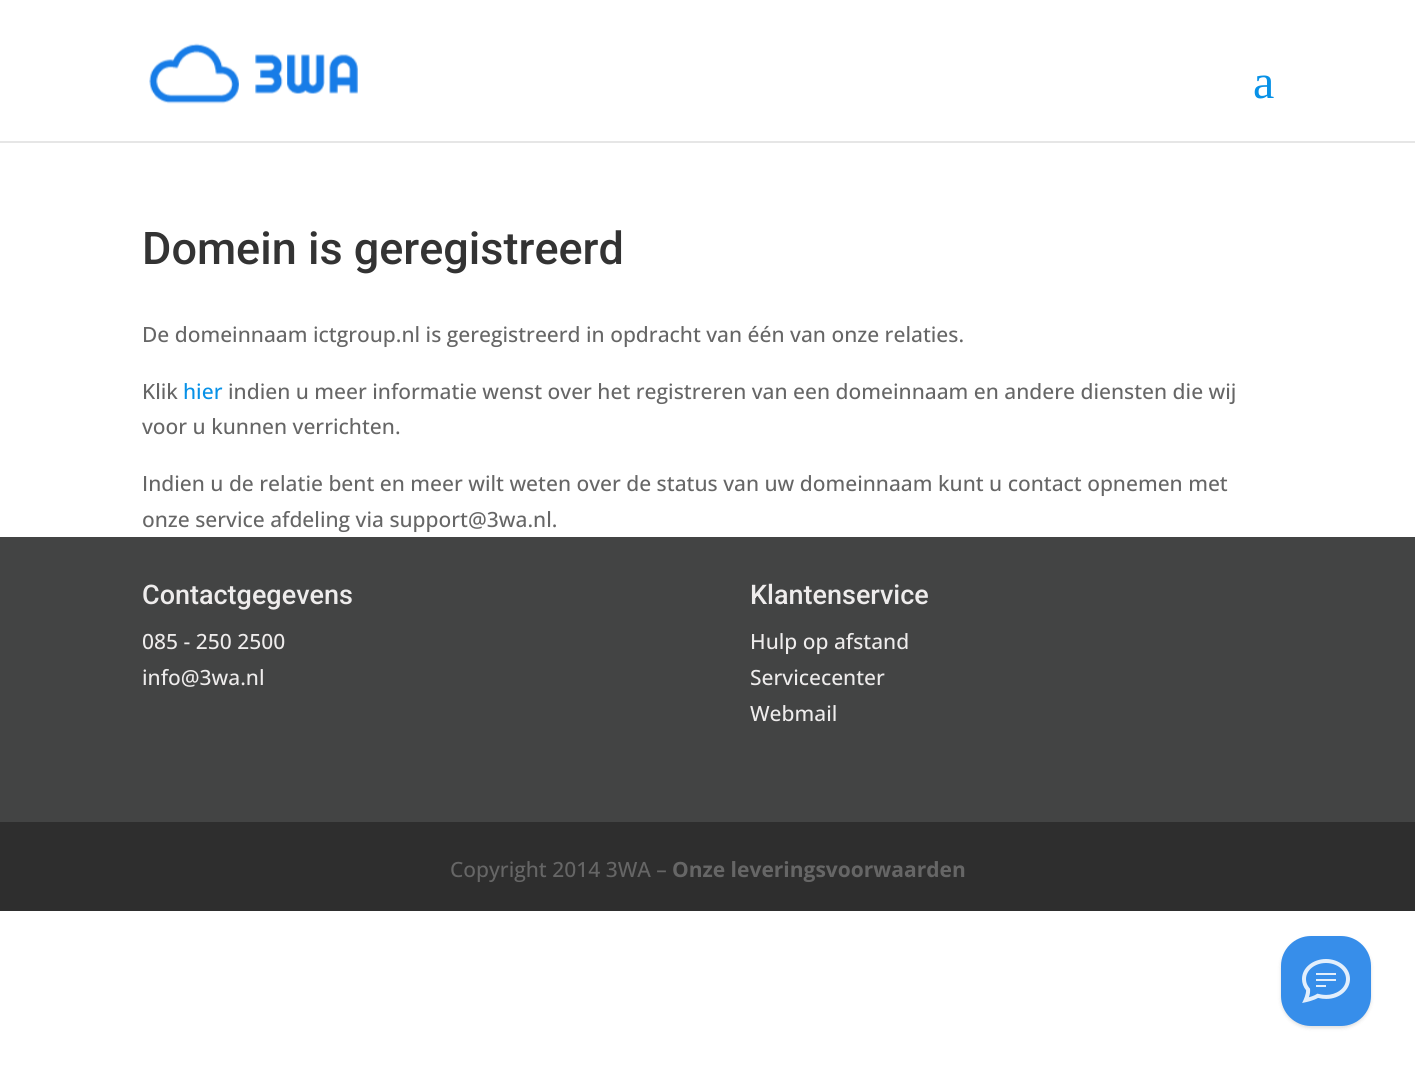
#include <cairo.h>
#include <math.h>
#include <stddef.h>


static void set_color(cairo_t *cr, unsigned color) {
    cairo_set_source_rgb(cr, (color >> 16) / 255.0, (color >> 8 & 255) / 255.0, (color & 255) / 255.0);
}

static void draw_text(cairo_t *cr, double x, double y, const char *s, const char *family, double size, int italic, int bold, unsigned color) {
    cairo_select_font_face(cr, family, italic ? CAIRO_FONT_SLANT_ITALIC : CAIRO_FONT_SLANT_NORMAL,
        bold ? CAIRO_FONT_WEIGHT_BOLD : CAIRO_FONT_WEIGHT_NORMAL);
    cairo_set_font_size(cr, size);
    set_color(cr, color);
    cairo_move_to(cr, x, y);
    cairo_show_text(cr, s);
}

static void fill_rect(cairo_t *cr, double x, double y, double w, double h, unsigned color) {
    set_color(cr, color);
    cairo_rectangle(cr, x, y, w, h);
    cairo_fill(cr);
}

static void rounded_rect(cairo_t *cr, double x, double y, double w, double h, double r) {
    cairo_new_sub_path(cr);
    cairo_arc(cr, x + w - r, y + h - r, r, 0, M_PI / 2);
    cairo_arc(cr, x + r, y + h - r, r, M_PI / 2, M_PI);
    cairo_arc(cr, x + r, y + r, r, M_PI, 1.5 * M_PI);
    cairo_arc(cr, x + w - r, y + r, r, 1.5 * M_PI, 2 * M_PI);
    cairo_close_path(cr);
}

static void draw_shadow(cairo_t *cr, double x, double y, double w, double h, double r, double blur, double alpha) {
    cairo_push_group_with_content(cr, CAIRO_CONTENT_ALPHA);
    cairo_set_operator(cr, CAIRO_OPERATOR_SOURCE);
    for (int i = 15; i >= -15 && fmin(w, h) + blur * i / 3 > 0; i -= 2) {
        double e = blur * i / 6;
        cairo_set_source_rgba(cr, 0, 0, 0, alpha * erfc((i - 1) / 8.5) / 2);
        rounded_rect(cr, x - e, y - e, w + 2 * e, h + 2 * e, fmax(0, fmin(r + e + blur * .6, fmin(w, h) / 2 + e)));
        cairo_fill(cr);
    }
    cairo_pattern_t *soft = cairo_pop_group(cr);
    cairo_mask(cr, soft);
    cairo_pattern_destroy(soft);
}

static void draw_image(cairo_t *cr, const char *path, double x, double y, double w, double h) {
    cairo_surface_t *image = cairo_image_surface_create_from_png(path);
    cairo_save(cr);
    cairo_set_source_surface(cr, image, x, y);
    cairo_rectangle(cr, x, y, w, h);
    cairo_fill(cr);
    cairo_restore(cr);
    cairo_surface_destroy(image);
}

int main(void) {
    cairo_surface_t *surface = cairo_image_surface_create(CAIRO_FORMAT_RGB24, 1415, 1071);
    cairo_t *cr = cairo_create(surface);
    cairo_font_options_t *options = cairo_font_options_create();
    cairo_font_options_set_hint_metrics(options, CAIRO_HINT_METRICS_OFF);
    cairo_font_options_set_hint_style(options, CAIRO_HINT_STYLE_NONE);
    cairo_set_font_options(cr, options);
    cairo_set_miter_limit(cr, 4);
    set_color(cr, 0xFFFFFF);
    cairo_paint(cr);
    fill_rect(cr, 0, 141, 1415, 2, 0xE6E6E6);
    draw_image(cr, "assets/img1.png", 149, 43, 209, 61);
    draw_text(cr, 1253, 98, "a", "Liberation Serif", 48, 0, 0, 0x0791E7);
    draw_text(cr, 142, 264, "Domein is geregistreerd", "Roboto Medium", 45, 0, 0, 0x333333);
    draw_text(cr, 142, 342, "De domeinnaam ictgroup.nl is geregistreerd in opdracht van één van onze relaties.", "Open Sans Medium", 21, 0, 0, 0x666666);
    draw_text(cr, 142, 399, "Klik", "Open Sans Medium", 21, 0, 0, 0x666666);
    draw_text(cr, 183, 399, "hier", "Open Sans Medium", 21, 0, 0, 0x0791E7);
    draw_text(cr, 228, 399, "indien u meer informatie wenst over het registreren van een domeinnaam en andere diensten die wij", "Open Sans Medium", 21, 0, 0, 0x666666);
    draw_text(cr, 142, 434, "voor u kunnen verrichten.", "Open Sans Medium", 21, 0, 0, 0x666666);
    draw_text(cr, 142, 491, "Indien u de relatie bent en meer wilt weten over de status van uw domeinnaam kunt u contact opnemen met", "Open Sans Medium", 21, 0, 0, 0x666666);
    draw_text(cr, 142, 527, "onze service afdeling via support@3wa.nl.", "Open Sans Medium", 21, 0, 0, 0x666666);
    fill_rect(cr, 0, 537, 1415, 285, 0x434444);
    draw_text(cr, 142, 604, "Contactgegevens", "Roboto Medium", 27, 0, 0, 0xEEECEC);
    draw_text(cr, 142, 649, "085 - 250 2500", "Open Sans Medium", 21, 0, 0, 0xEEECEC);
    draw_text(cr, 142, 685, "info@3wa.nl", "Open Sans Medium", 21, 0, 0, 0xEEECEC);
    draw_text(cr, 750, 604, "Klantenservice", "Roboto Medium", 27, 0, 0, 0xEEECEC);
    draw_text(cr, 750, 649, "Hulp op afstand", "Open Sans Medium", 21, 0, 0, 0xEEECEC);
    draw_text(cr, 750, 685, "Servicecenter", "Open Sans Medium", 21, 0, 0, 0xEEECEC);
    draw_text(cr, 750, 721, "Webmail", "Open Sans Medium", 21, 0, 0, 0xEEECEC);
    fill_rect(cr, 0, 822, 1415, 89, 0x2E2E2E);
    draw_text(cr, 450, 877, "Copyright 2014 3WA –", "Open Sans Medium", 21, 0, 0, 0x666666);
    draw_text(cr, 672, 877, "Onze leveringsvoorwaarden", "Open Sans", 21, 0, 1, 0x666666);
    set_color(cr, 0x242424);
    draw_shadow(cr, 1281, 938, 90, 90, 30, 1.5, 0.06);
    draw_shadow(cr, 1281, 938, 90, 90, 30, 2, 0.1);
    set_color(cr, 0x378EEA);
    rounded_rect(cr, 1281, 936, 90, 90, 30);
    cairo_fill(cr);
    draw_image(cr, "assets/img2.png", 1302, 959, 48, 44);
    cairo_surface_write_to_png(surface, "output.png");
    cairo_font_options_destroy(options);
    cairo_destroy(cr);
    cairo_surface_destroy(surface);
    return 0;
}
